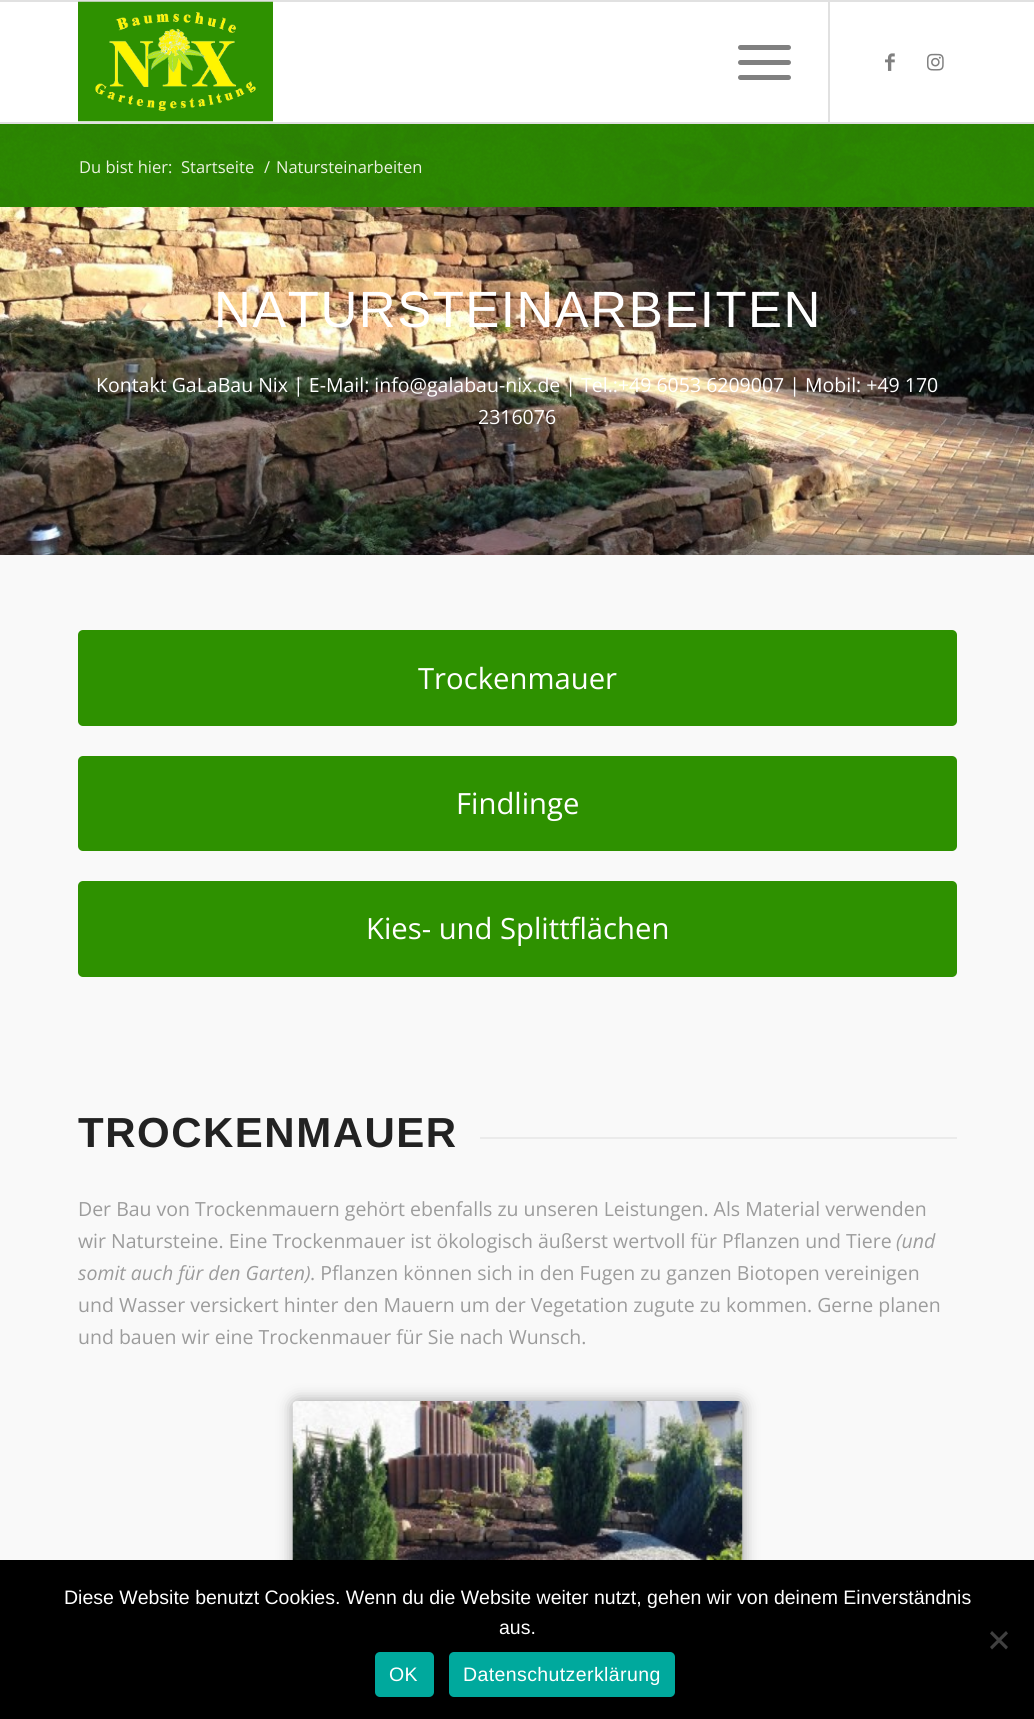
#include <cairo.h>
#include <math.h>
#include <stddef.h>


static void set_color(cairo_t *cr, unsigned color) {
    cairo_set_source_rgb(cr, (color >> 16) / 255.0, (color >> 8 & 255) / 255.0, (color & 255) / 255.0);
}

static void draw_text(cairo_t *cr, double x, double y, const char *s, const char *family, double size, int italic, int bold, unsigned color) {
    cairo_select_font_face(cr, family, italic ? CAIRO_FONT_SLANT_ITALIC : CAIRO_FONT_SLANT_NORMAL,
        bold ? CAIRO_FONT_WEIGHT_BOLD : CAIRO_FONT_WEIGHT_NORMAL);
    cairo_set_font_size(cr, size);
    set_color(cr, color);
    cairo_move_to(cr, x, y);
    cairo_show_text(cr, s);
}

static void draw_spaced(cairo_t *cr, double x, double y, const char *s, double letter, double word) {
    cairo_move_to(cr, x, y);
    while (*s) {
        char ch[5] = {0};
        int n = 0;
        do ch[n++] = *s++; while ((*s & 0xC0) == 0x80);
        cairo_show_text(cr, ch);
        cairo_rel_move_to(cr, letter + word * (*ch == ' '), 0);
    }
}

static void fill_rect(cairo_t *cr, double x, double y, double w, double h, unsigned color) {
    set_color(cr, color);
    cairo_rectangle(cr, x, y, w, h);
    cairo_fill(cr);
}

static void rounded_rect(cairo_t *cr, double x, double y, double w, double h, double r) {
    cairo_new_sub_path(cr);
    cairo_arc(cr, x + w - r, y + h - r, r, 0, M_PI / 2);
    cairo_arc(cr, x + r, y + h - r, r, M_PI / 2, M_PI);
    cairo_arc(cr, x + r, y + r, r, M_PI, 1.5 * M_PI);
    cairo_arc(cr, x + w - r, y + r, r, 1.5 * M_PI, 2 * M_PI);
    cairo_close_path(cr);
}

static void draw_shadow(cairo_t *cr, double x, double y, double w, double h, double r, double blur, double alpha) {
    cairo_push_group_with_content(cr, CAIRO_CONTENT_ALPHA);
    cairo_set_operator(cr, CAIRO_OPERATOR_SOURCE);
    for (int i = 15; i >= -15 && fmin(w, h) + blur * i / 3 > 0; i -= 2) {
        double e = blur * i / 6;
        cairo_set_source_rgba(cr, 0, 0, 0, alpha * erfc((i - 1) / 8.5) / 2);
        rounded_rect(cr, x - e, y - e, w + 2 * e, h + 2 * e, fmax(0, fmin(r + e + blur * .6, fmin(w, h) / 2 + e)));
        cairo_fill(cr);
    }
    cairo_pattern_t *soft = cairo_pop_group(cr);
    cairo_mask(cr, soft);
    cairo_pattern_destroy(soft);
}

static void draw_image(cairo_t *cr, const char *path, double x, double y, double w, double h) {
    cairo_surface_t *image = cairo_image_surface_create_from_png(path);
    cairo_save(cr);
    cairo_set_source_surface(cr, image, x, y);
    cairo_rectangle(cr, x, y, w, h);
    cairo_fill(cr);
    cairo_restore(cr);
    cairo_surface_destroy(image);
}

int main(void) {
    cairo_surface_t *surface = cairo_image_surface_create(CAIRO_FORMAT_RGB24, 1034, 1719);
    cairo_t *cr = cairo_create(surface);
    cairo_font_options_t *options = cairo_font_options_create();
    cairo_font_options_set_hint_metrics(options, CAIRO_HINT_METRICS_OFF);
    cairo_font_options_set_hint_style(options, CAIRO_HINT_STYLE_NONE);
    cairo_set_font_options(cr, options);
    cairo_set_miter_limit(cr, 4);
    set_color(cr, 0xFFFFFF);
    cairo_paint(cr);
    fill_rect(cr, 0, 0, 1034, 2, 0xE1E1E1);
    fill_rect(cr, 0, 122, 1034, 2, 0xE1E1E1);
    draw_image(cr, "assets/img1.png", 78, 1, 195, 121);
    fill_rect(cr, 828, 2, 2, 120, 0xE1E1E1);
    set_color(cr, 0x808080);
    rounded_rect(cr, 738, 60, 53, 5, 2.5);
    cairo_fill(cr);
    rounded_rect(cr, 738, 45, 53, 5, 2.5);
    cairo_fill(cr);
    rounded_rect(cr, 738, 75, 53, 5, 2.5);
    cairo_fill(cr);
    draw_image(cr, "assets/img2.png", 885, 53, 10, 18);
    draw_image(cr, "assets/img3.png", 927, 53, 17, 18);
    fill_rect(cr, 0, 124, 1034, 83, 0x2E9100);
    draw_image(cr, "assets/img4.png", 0, 124, 1034, 83);
    draw_text(cr, 79, 173, "Du bist hier:", "Open Sans", 16.5, 0, 0, 0xECF2E1);
    draw_text(cr, 181, 173, "Startseite", "Open Sans", 16.5, 0, 0, 0xECF2E1);
    draw_text(cr, 264, 173, "/", "Open Sans", 16.5, 0, 0, 0xECF2E1);
    draw_text(cr, 276, 173, "Natursteinarbeiten", "Open Sans", 16.5, 0, 0, 0xECF2E1);
    draw_image(cr, "assets/img5.png", 0, 207, 1034, 348);
    cairo_select_font_face(cr, "Liberation Sans", CAIRO_FONT_SLANT_NORMAL, CAIRO_FONT_WEIGHT_NORMAL);
    cairo_set_font_size(cr, 51);
    set_color(cr, 0xFFFFFF);
    draw_spaced(cr, 214, 327, "NATURSTEINARBEITEN", 1.5, 0);
    draw_text(cr, 96, 392, "Kontakt GaLaBau Nix | E-Mail: info@galabau-nix.de | Tel.:+49 6053 6209007 | Mobil: +49 170", "Open Sans", 19.5, 0, 0, 0xFFFFFF);
    draw_text(cr, 478, 424, "2316076", "Open Sans", 19.5, 0, 0, 0xFFFFFF);
    fill_rect(cr, 0, 555, 1034, 1005, 0xF9F9F9);
    set_color(cr, 0x2E9100);
    rounded_rect(cr, 78, 630, 879, 96, 5);
    cairo_fill(cr);
    draw_text(cr, 418, 689, "Trockenmauer", "Open Sans", 29.25, 0, 0, 0xFFFFFF);
    set_color(cr, 0x2E9100);
    rounded_rect(cr, 78, 756, 879, 95, 5);
    cairo_fill(cr);
    draw_text(cr, 456, 814, "Findlinge", "Open Sans", 29.25, 0, 0, 0xFFFFFF);
    set_color(cr, 0x2E9100);
    rounded_rect(cr, 78, 881, 879, 96, 5);
    cairo_fill(cr);
    draw_text(cr, 366, 939, "Kies- und Splittflächen", "Open Sans", 29.25, 0, 0, 0xFFFFFF);
    cairo_select_font_face(cr, "Liberation Sans", CAIRO_FONT_SLANT_NORMAL, CAIRO_FONT_WEIGHT_BOLD);
    cairo_set_font_size(cr, 42);
    set_color(cr, 0x222222);
    draw_spaced(cr, 78, 1147, "TROCKENMAUER", 1.5, 0);
    fill_rect(cr, 480, 1137, 477, 2, 0xEBEBEB);
    draw_text(cr, 78, 1216, "Der Bau von Trockenmauern gehört ebenfalls zu unseren Leistungen. Als Material verwenden", "Open Sans", 19.5, 0, 0, 0x9C9C9C);
    draw_text(cr, 78, 1248, "wir Natursteine. Eine Trockenmauer ist ökologisch äußerst wertvoll für Pflanzen und Tiere", "Open Sans", 19.5, 0, 0, 0x9C9C9C);
    draw_text(cr, 896, 1248, "(und", "Open Sans", 19.5, 1, 0, 0x9C9C9C);
    draw_text(cr, 78, 1280, "somit auch für den Garten)", "Open Sans", 19.5, 1, 0, 0x9C9C9C);
    draw_text(cr, 310, 1280, ". Pflanzen können sich in den Fugen zu ganzen Biotopen vereinigen", "Open Sans", 19.5, 0, 0, 0x9C9C9C);
    draw_text(cr, 78, 1312, "und Wasser versickert hinter den Mauern um der Vegetation zugute zu kommen. Gerne planen", "Open Sans", 19.5, 0, 0, 0x9C9C9C);
    draw_text(cr, 78, 1344, "und bauen wir eine Trockenmauer für Sie nach Wunsch.", "Open Sans", 19.5, 0, 0, 0x9C9C9C);
    set_color(cr, 0x9C9C9C);
    draw_shadow(cr, 293, 1401, 450, 300, 5, 7.5, 1);
    draw_image(cr, "assets/img6.png", 292, 1401, 451, 159);
    fill_rect(cr, 0, 1560, 1034, 159, 0x000000);
    draw_text(cr, 64, 1604, "Diese Website benutzt Cookies. Wenn du die Website weiter nutzt, gehen wir von deinem Einverständnis", "Liberation Sans", 19.5, 0, 0, 0xFFFFFF);
    draw_text(cr, 499, 1634, "aus.", "Liberation Sans", 19.5, 0, 0, 0xFFFFFF);
    set_color(cr, 0x404040);
    cairo_new_path(cr);
    cairo_move_to(cr, 1006, 1631);
    cairo_line_to(cr, 1008, 1633.5);
    cairo_line_to(cr, 992, 1649.5);
    cairo_line_to(cr, 990, 1647);
    cairo_close_path(cr);
    cairo_fill(cr);
    cairo_new_path(cr);
    cairo_move_to(cr, 990, 1633.5);
    cairo_line_to(cr, 992, 1631);
    cairo_line_to(cr, 1008, 1647);
    cairo_line_to(cr, 1006, 1649.5);
    cairo_close_path(cr);
    cairo_fill(cr);
    set_color(cr, 0x00A99D);
    rounded_rect(cr, 375, 1652, 59, 45, 5);
    cairo_fill(cr);
    set_color(cr, 0xFFFFFF);
    draw_spaced(cr, 389, 1681, "OK", 0.4, 0);
    set_color(cr, 0x00A99D);
    rounded_rect(cr, 449, 1652, 226, 45, 5);
    cairo_fill(cr);
    set_color(cr, 0xFFFFFF);
    draw_spaced(cr, 463, 1681, "Datenschutzerklärung", 0.4, 0);
    cairo_surface_write_to_png(surface, "output.png");
    cairo_font_options_destroy(options);
    cairo_destroy(cr);
    cairo_surface_destroy(surface);
    return 0;
}
